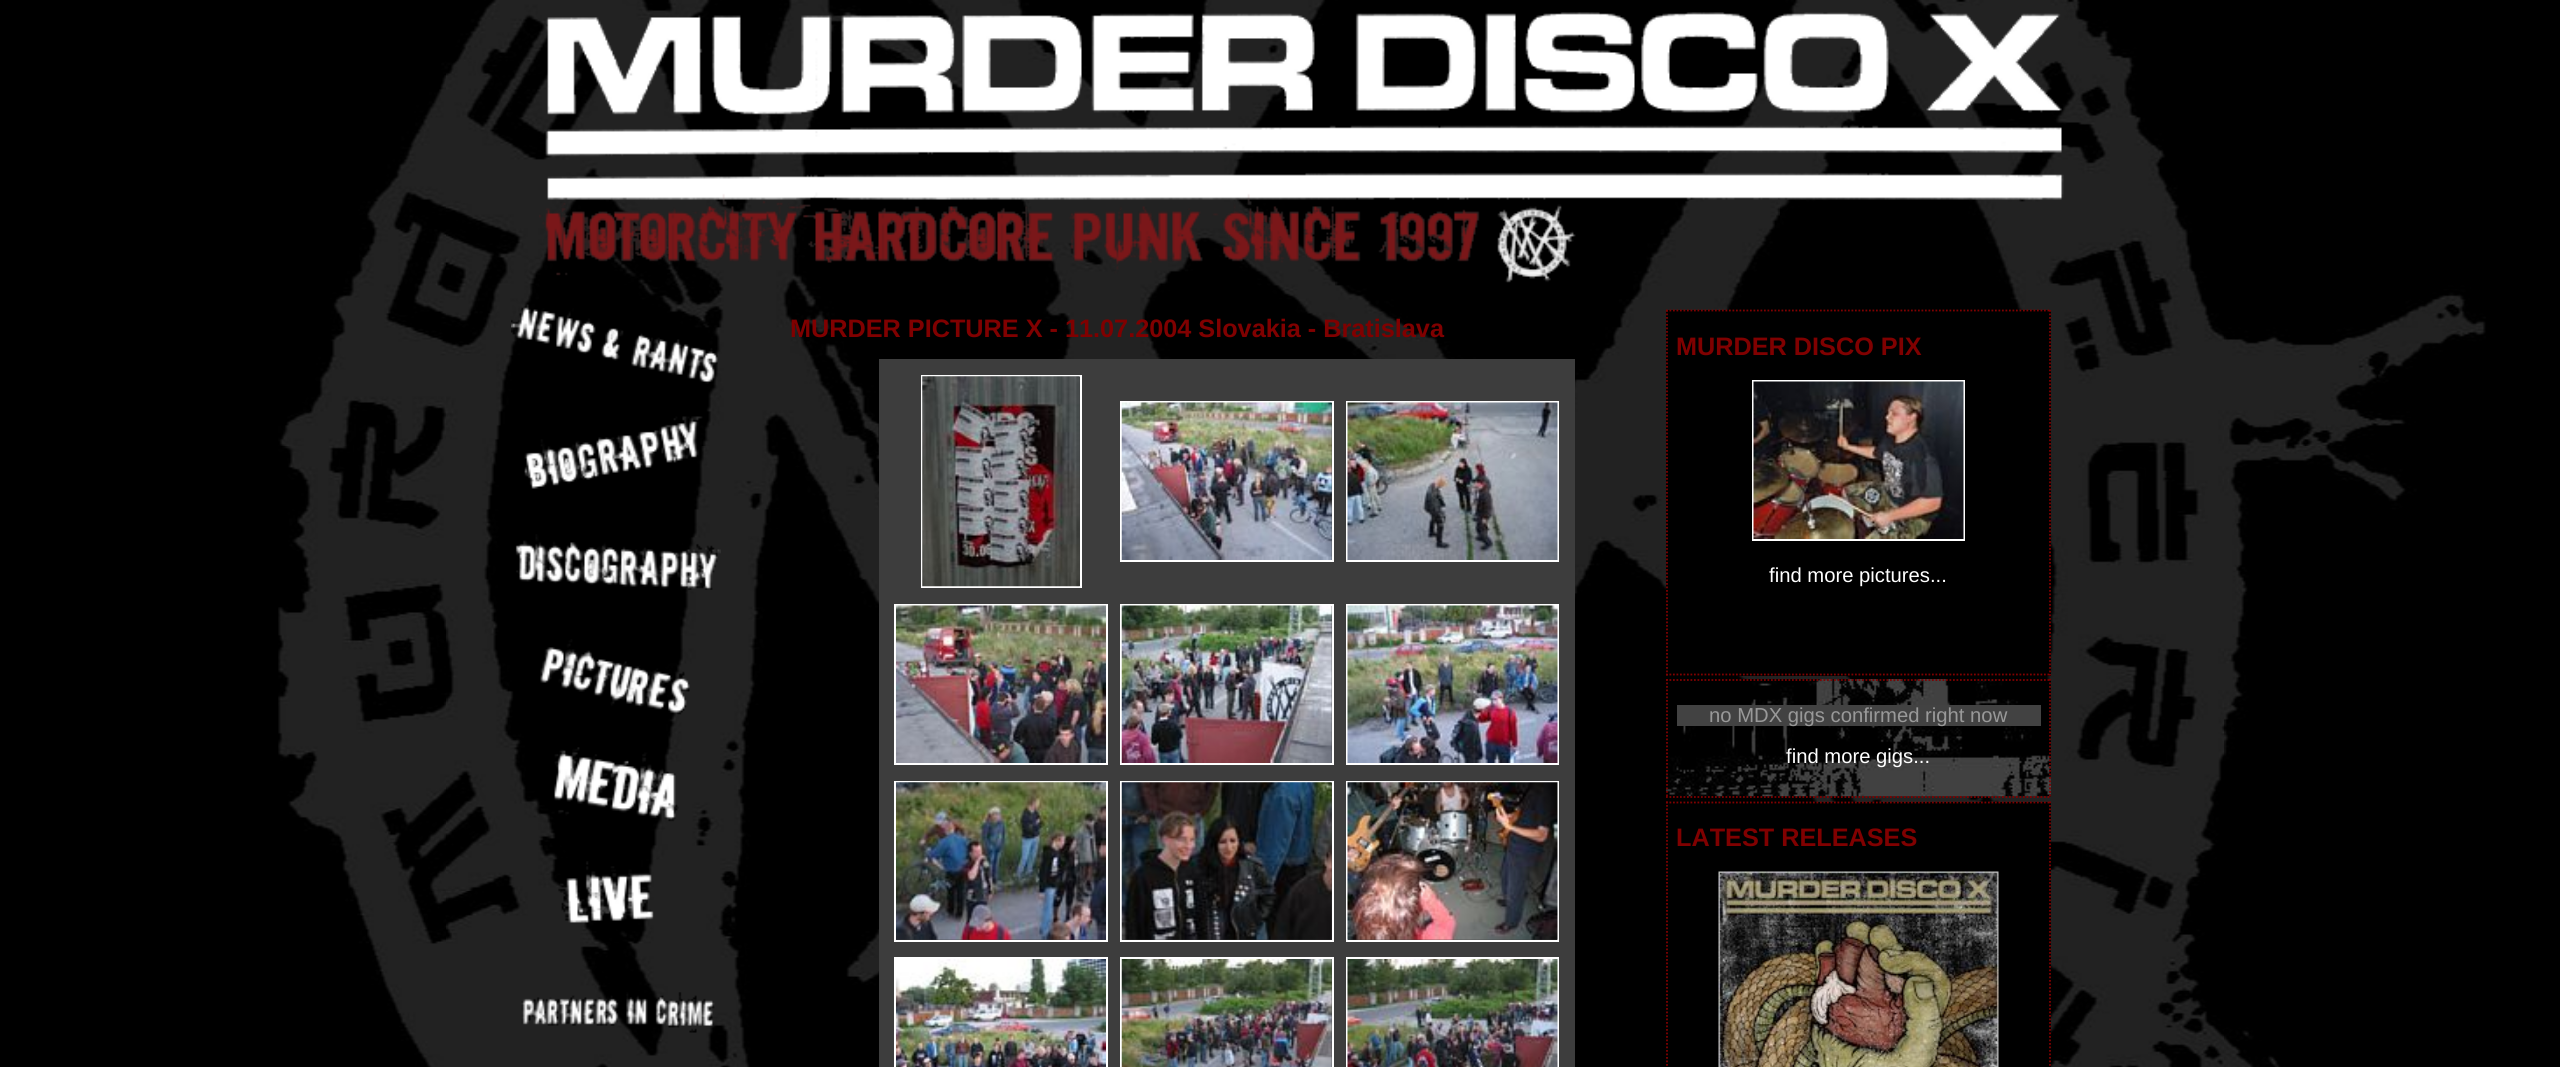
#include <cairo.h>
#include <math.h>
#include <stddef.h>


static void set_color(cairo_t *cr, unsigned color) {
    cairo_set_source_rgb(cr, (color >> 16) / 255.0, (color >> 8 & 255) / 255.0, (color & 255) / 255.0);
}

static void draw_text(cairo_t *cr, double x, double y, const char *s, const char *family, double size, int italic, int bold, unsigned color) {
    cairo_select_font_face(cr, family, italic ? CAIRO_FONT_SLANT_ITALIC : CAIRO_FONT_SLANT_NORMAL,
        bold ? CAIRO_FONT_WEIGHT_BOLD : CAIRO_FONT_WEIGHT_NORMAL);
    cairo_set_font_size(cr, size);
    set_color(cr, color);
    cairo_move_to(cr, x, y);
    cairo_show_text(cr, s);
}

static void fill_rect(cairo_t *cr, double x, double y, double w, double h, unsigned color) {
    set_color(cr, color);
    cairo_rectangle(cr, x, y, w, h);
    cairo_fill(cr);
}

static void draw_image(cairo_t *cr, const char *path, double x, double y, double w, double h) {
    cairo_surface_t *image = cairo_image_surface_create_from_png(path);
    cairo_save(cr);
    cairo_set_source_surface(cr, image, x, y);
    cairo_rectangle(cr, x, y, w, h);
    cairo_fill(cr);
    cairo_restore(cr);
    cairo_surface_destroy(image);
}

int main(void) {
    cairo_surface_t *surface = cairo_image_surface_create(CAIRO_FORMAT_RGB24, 2560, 1067);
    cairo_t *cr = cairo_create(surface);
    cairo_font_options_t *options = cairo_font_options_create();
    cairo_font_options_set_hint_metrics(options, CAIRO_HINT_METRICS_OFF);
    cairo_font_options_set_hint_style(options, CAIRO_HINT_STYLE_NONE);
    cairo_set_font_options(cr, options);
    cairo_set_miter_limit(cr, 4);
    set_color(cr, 0x000000);
    cairo_paint(cr);
    draw_image(cr, "assets/img1.png", 278, 0, 2208, 1067);
    draw_image(cr, "assets/img2.png", 539, 12, 1525, 271);
    draw_image(cr, "assets/img3.png", 511, 304, 207, 80);
    draw_image(cr, "assets/img4.png", 524, 416, 179, 73);
    draw_image(cr, "assets/img5.png", 515, 534, 206, 56);
    draw_image(cr, "assets/img6.png", 540, 639, 150, 76);
    draw_image(cr, "assets/img7.png", 554, 747, 125, 75);
    draw_image(cr, "assets/img8.png", 558, 861, 96, 62);
    draw_image(cr, "assets/img9.png", 521, 992, 194, 41);
    draw_text(cr, 790, 337, "MURDER PICTURE X - 11.07.2004 Slovakia - Bratislava", "Liberation Sans", 25.25, 0, 1, 0x800000);
    fill_rect(cr, 879, 359, 696, 708, 0x3D3D3D);
    cairo_rectangle(cr, 922, 376, 159, 211);
    set_color(cr, 0xFFFFFF);
    cairo_stroke(cr);
    draw_image(cr, "assets/img10.png", 922, 376, 158, 211);
    cairo_rectangle(cr, 1121, 402, 212, 159);
    cairo_stroke(cr);
    draw_image(cr, "assets/img11.png", 1121, 402, 211, 158);
    cairo_rectangle(cr, 1347, 402, 211, 159);
    cairo_stroke(cr);
    draw_image(cr, "assets/img12.png", 1347, 402, 211, 158);
    cairo_rectangle(cr, 895, 605, 212, 159);
    cairo_stroke(cr);
    draw_image(cr, "assets/img13.png", 896, 605, 210, 158);
    cairo_rectangle(cr, 1121, 605, 212, 159);
    cairo_stroke(cr);
    draw_image(cr, "assets/img14.png", 1121, 605, 211, 158);
    cairo_rectangle(cr, 1347, 605, 211, 159);
    cairo_stroke(cr);
    draw_image(cr, "assets/img15.png", 1347, 605, 211, 158);
    cairo_rectangle(cr, 895, 782, 212, 159);
    cairo_stroke(cr);
    draw_image(cr, "assets/img16.png", 896, 782, 210, 158);
    cairo_rectangle(cr, 1121, 782, 212, 159);
    cairo_stroke(cr);
    draw_image(cr, "assets/img17.png", 1121, 782, 211, 158);
    cairo_rectangle(cr, 1347, 782, 211, 159);
    cairo_stroke(cr);
    draw_image(cr, "assets/img18.png", 1347, 782, 211, 158);
    cairo_rectangle(cr, 895, 958, 212, 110);
    cairo_stroke(cr);
    draw_image(cr, "assets/img19.png", 896, 959, 210, 108);
    cairo_rectangle(cr, 1121, 958, 212, 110);
    cairo_stroke(cr);
    draw_image(cr, "assets/img20.png", 1121, 959, 211, 108);
    cairo_rectangle(cr, 1347, 958, 211, 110);
    cairo_stroke(cr);
    draw_image(cr, "assets/img21.png", 1347, 959, 211, 108);
    fill_rect(cr, 1666, 310, 385, 366, 0x000000);
    cairo_new_path(cr);
    cairo_move_to(cr, 1666, 310.5);
    cairo_line_to(cr, 2051, 310.5);
    set_color(cr, 0x800000);
    cairo_set_line_width(cr, 1.8);
    cairo_set_dash(cr, (double[]){1.75, 1.75}, 2, 0);
    cairo_stroke(cr);
    cairo_new_path(cr);
    cairo_move_to(cr, 2050, 310);
    cairo_line_to(cr, 2050, 675.5);
    cairo_stroke(cr);
    cairo_new_path(cr);
    cairo_move_to(cr, 1666, 674.5);
    cairo_line_to(cr, 2051, 674.5);
    cairo_stroke(cr);
    cairo_new_path(cr);
    cairo_move_to(cr, 1667, 310);
    cairo_line_to(cr, 1667, 675.5);
    cairo_stroke(cr);
    draw_text(cr, 1676, 355, "MURDER DISCO PIX", "Liberation Sans", 25.25, 0, 1, 0x800000);
    cairo_rectangle(cr, 1753, 381, 211, 159);
    set_color(cr, 0xFFFFFF);
    cairo_set_line_width(cr, 2);
    cairo_set_dash(cr, NULL, 0, 0);
    cairo_stroke(cr);
    draw_image(cr, "assets/img22.png", 1753, 381, 211, 158);
    draw_text(cr, 1769, 582, "find more pictures...", "Liberation Sans", 20.25, 0, 0, 0xFFFFFF);
    draw_image(cr, "assets/img23.png", 1666, 679, 385, 118);
    cairo_new_path(cr);
    cairo_move_to(cr, 1666, 680);
    cairo_line_to(cr, 2051, 680);
    set_color(cr, 0x800000);
    cairo_set_line_width(cr, 1.8);
    cairo_set_dash(cr, (double[]){1.75, 1.75}, 2, 0);
    cairo_stroke(cr);
    cairo_new_path(cr);
    cairo_move_to(cr, 2050, 679);
    cairo_line_to(cr, 2050, 798);
    cairo_stroke(cr);
    cairo_new_path(cr);
    cairo_move_to(cr, 1666, 797);
    cairo_line_to(cr, 2051, 797);
    cairo_stroke(cr);
    cairo_new_path(cr);
    cairo_move_to(cr, 1667, 679);
    cairo_line_to(cr, 1667, 798);
    cairo_stroke(cr);
    fill_rect(cr, 1677, 705, 364, 21, 0x424242);
    draw_text(cr, 1709, 722, "no MDX gigs confirmed right now", "Liberation Sans", 20.25, 0, 0, 0x999999);
    draw_text(cr, 1786, 763, "find more gigs...", "Liberation Sans", 20.25, 0, 0, 0xFFFFFF);
    fill_rect(cr, 1814, 802, 237, 265, 0x000000);
    cairo_new_path(cr);
    cairo_move_to(cr, 1666, 802.5);
    cairo_line_to(cr, 2051, 802.5);
    set_color(cr, 0x800000);
    cairo_stroke(cr);
    cairo_new_path(cr);
    cairo_move_to(cr, 2050, 801.5);
    cairo_line_to(cr, 2050, 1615);
    cairo_stroke(cr);
    cairo_new_path(cr);
    cairo_move_to(cr, 1667, 801.5);
    cairo_line_to(cr, 1667, 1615);
    cairo_stroke(cr);
    draw_text(cr, 1676, 846, "LATEST RELEASES", "Liberation Sans", 25.25, 0, 1, 0x800000);
    draw_image(cr, "assets/img24.png", 1718, 871, 281, 196);
    cairo_surface_write_to_png(surface, "output.png");
    cairo_font_options_destroy(options);
    cairo_destroy(cr);
    cairo_surface_destroy(surface);
    return 0;
}
